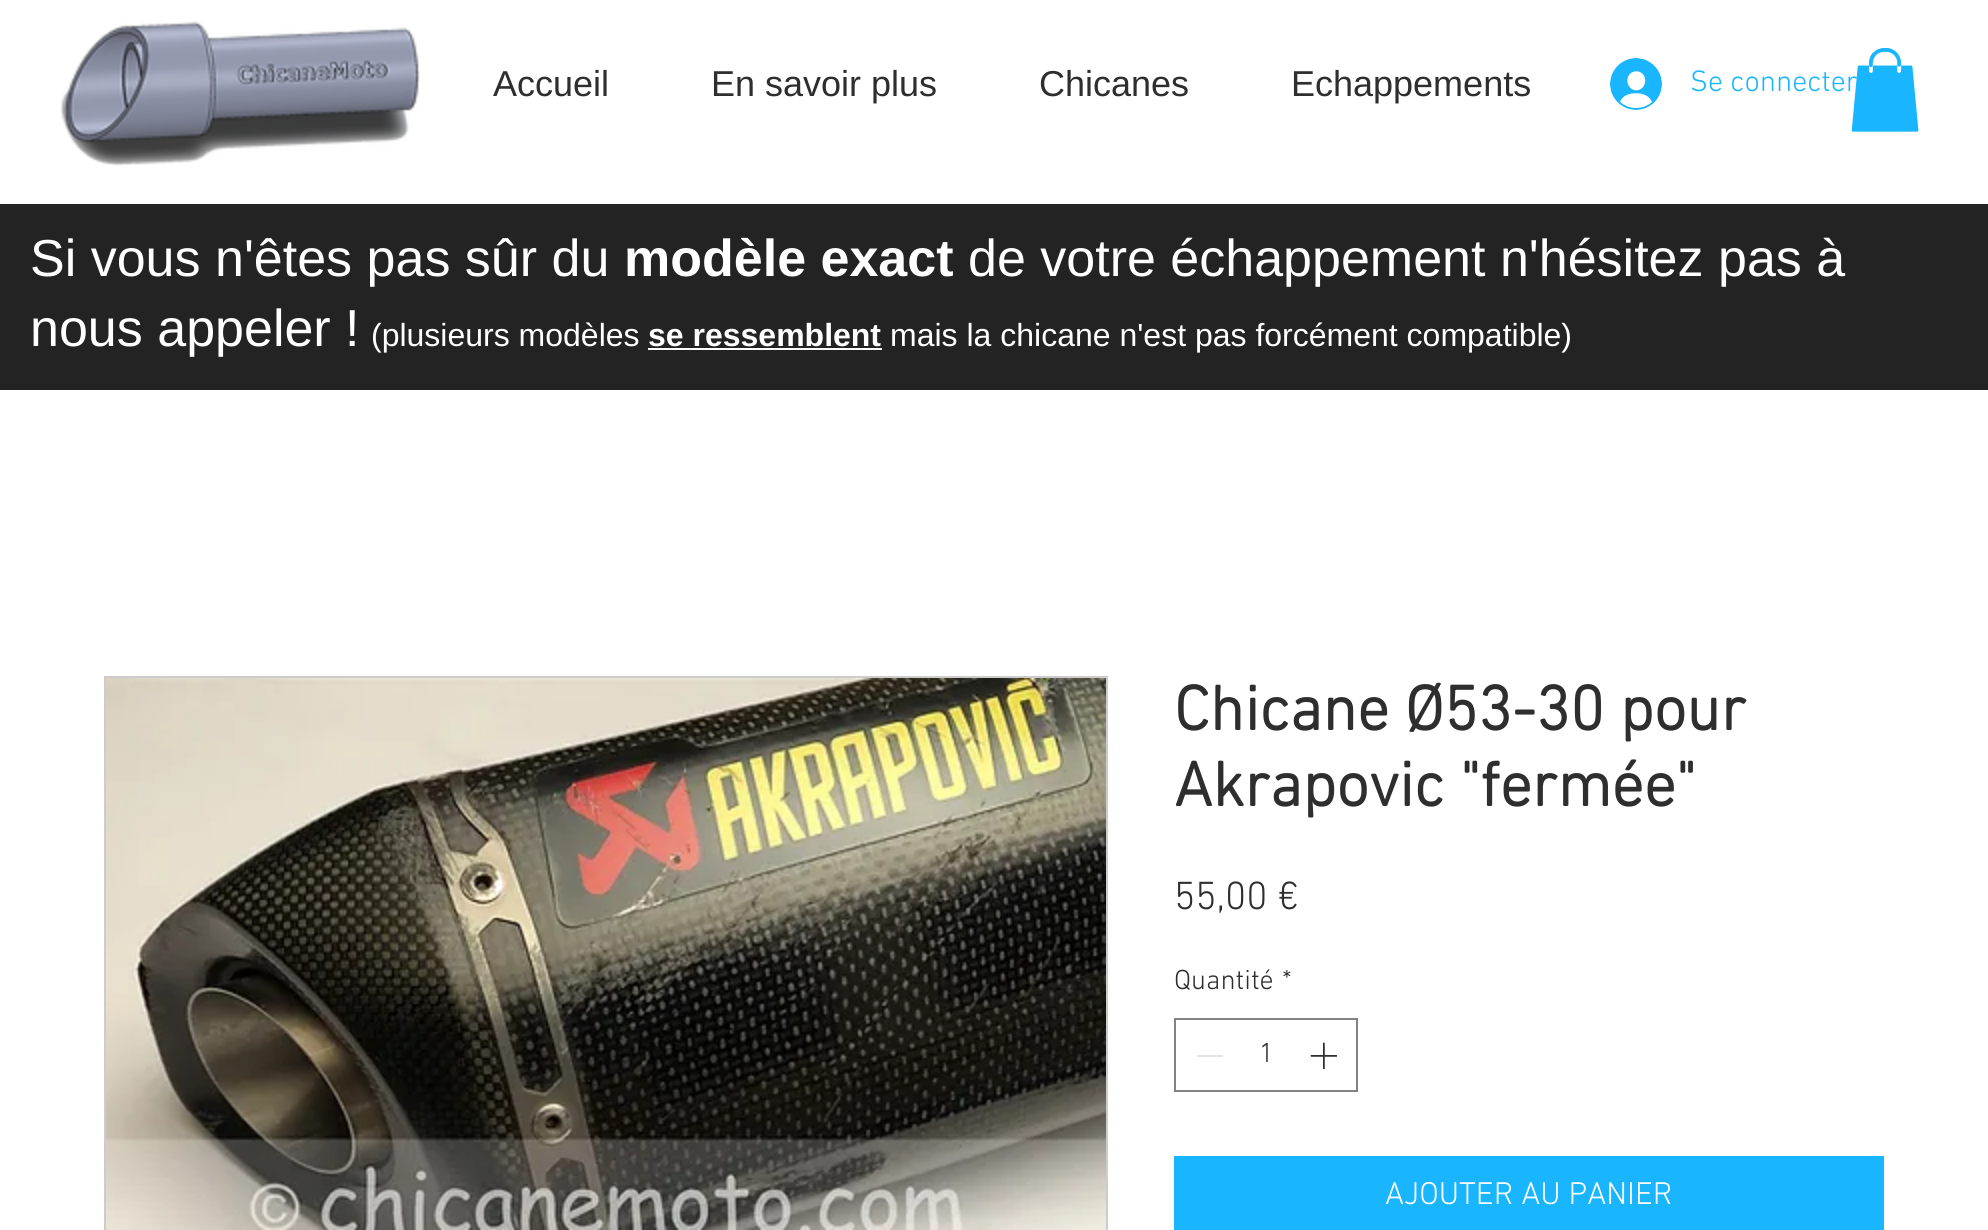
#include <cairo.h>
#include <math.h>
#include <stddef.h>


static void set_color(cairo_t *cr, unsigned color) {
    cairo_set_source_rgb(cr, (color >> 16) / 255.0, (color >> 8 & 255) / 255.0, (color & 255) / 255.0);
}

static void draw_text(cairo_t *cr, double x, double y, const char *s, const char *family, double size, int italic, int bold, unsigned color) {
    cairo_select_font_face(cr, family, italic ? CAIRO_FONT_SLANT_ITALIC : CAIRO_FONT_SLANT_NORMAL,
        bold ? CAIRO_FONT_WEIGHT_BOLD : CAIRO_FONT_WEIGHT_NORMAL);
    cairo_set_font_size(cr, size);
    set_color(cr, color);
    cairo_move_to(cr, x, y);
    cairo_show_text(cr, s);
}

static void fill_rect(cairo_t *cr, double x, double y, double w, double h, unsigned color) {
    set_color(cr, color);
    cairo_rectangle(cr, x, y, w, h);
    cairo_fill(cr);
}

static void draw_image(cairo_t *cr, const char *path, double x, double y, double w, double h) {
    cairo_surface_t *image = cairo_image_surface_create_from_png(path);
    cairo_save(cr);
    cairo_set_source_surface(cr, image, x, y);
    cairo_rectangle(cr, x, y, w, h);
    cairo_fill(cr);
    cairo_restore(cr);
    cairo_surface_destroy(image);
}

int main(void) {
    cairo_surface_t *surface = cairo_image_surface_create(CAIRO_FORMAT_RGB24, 1988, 1230);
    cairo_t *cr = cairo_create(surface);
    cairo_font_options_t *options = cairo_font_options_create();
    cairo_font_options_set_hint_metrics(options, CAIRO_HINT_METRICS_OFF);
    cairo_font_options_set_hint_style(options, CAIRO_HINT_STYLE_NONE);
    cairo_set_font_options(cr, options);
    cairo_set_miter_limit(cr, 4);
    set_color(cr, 0xFFFFFF);
    cairo_paint(cr);
    draw_image(cr, "assets/img1.png", 60, 21, 360, 145);
    draw_text(cr, 493, 96, "Accueil", "Liberation Sans", 36, 0, 0, 0x2F2E2E);
    draw_text(cr, 711, 96, "En savoir plus", "Liberation Sans", 36, 0, 0, 0x2F2E2E);
    draw_text(cr, 1039, 96, "Chicanes", "Liberation Sans", 36, 0, 0, 0x2F2E2E);
    draw_text(cr, 1291, 96, "Echappements", "Liberation Sans", 36, 0, 0, 0x2F2E2E);
    draw_image(cr, "assets/img2.png", 1610, 58, 52, 52);
    draw_text(cr, 1690, 91, "Se connecter", "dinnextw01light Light", 30, 0, 0, 0x19B6FF);
    draw_image(cr, "assets/img3.png", 1851, 48, 68, 84);
    fill_rect(cr, 0, 204, 1988, 186, 0x242323);
    draw_text(cr, 30, 276, "Si vous n'êtes pas sûr du", "Liberation Sans", 52, 0, 0, 0xFFFFFF);
    draw_text(cr, 624, 276, "modèle exact", "Liberation Sans", 52, 0, 1, 0xFFFFFF);
    draw_text(cr, 968, 276, "de votre échappement n'hésitez pas à", "Liberation Sans", 52, 0, 0, 0xFFFFFF);
    draw_text(cr, 30, 346, "nous appeler !", "Liberation Sans", 52, 0, 0, 0xFFFFFF);
    draw_text(cr, 371, 346, "(plusieurs modèles", "Liberation Sans", 32, 0, 0, 0xFFFFFF);
    draw_text(cr, 648, 346, "se ressemblent", "Liberation Sans", 32, 0, 1, 0xFFFFFF);
    fill_rect(cr, 648, 348, 234, 2, 0xFFFFFF);
    draw_text(cr, 890, 346, "mais la chicane n'est pas forcément compatible)", "Liberation Sans", 32, 0, 0, 0xFFFFFF);
    cairo_rectangle(cr, 105, 677, 1002, 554);
    set_color(cr, 0xCCCCCC);
    cairo_stroke(cr);
    draw_image(cr, "assets/img4.png", 106, 678, 1000, 552);
    draw_text(cr, 1174, 730, "Chicane Ø53-30 pour", "dinnextw01light", 64, 0, 1, 0x2F2E2E);
    draw_text(cr, 1174, 806, "Akrapovic \"fermée\"", "dinnextw01light", 64, 0, 1, 0x2F2E2E);
    draw_text(cr, 1174, 909, "55,00 €", "dinnextw01light Light", 40, 0, 0, 0x2F2E2E);
    draw_text(cr, 1174, 989, "Quantité", "dinnextw01light Light", 28, 0, 0, 0x2F2E2E);
    draw_text(cr, 1282, 989, "*", "dinnextw01light Light", 28, 0, 0, 0x2F2E2E);
    cairo_rectangle(cr, 1175, 1019, 182, 72);
    set_color(cr, 0x828282);
    cairo_stroke(cr);
    fill_rect(cr, 1197, 1055, 26, 2, 0xE3E3E3);
    draw_text(cr, 1259, 1062, "1", "dinnextw01light Light", 28, 0, 0, 0x2F2E2E);
    draw_image(cr, "assets/img5.png", 1310, 1042, 27, 27);
    fill_rect(cr, 1174, 1156, 710, 74, 0x19B6FF);
    draw_text(cr, 1385, 1204, "AJOUTER AU PANIER", "dinnextw01light Light", 32, 0, 0, 0xFFFFFF);
    cairo_surface_write_to_png(surface, "output.png");
    cairo_font_options_destroy(options);
    cairo_destroy(cr);
    cairo_surface_destroy(surface);
    return 0;
}
